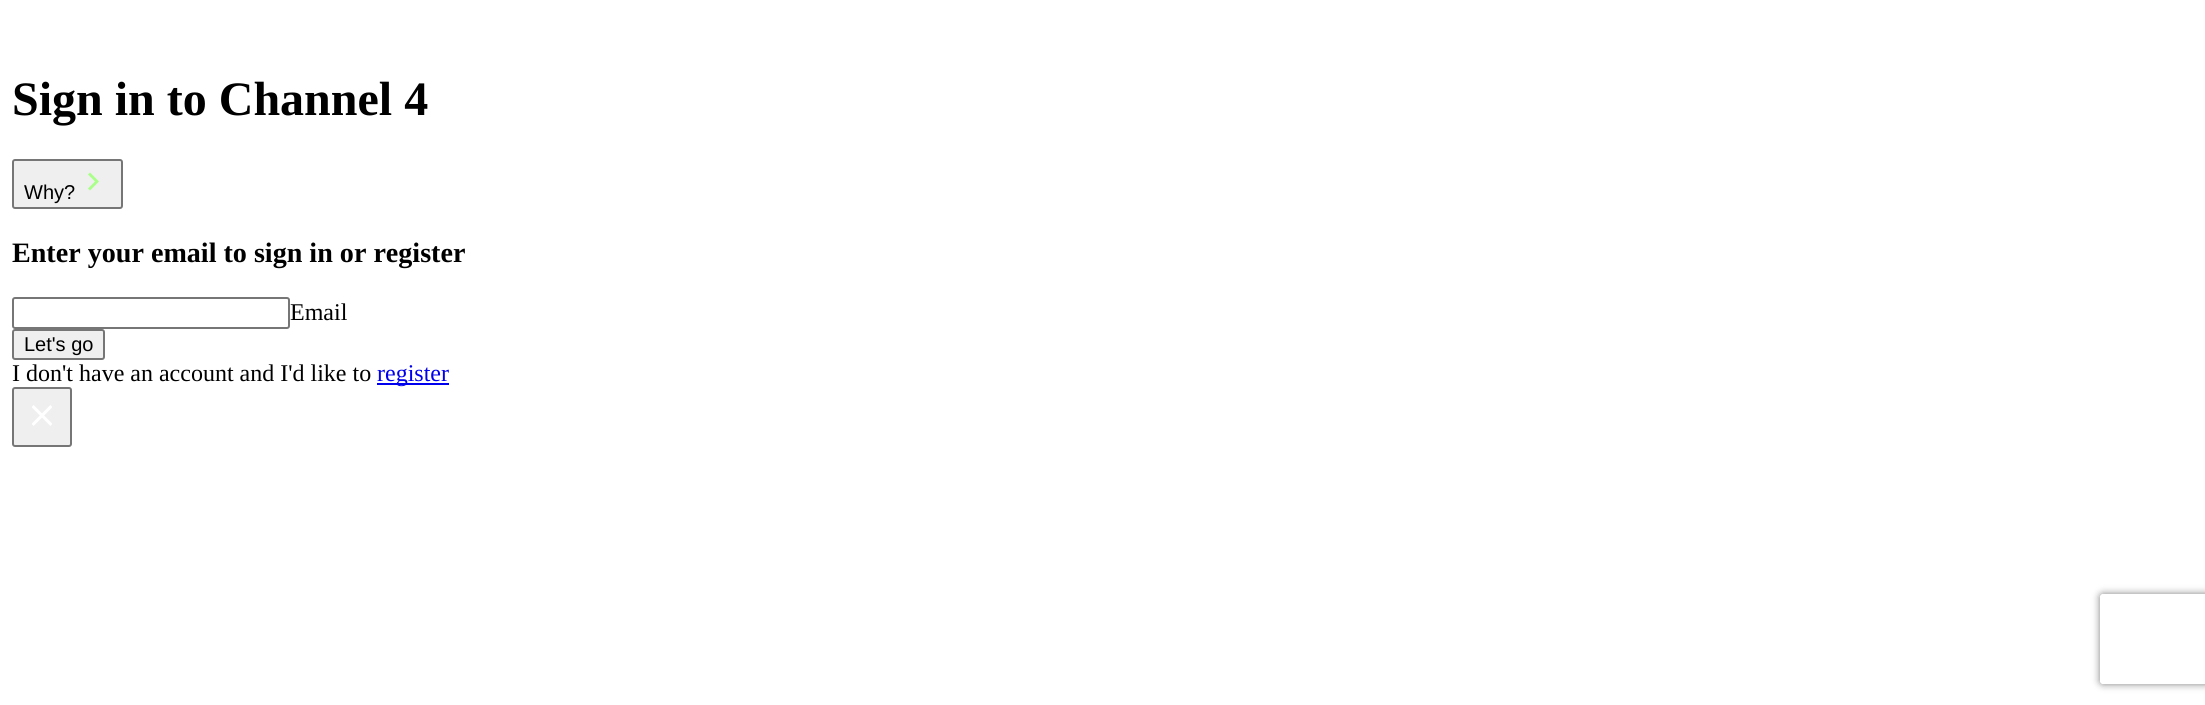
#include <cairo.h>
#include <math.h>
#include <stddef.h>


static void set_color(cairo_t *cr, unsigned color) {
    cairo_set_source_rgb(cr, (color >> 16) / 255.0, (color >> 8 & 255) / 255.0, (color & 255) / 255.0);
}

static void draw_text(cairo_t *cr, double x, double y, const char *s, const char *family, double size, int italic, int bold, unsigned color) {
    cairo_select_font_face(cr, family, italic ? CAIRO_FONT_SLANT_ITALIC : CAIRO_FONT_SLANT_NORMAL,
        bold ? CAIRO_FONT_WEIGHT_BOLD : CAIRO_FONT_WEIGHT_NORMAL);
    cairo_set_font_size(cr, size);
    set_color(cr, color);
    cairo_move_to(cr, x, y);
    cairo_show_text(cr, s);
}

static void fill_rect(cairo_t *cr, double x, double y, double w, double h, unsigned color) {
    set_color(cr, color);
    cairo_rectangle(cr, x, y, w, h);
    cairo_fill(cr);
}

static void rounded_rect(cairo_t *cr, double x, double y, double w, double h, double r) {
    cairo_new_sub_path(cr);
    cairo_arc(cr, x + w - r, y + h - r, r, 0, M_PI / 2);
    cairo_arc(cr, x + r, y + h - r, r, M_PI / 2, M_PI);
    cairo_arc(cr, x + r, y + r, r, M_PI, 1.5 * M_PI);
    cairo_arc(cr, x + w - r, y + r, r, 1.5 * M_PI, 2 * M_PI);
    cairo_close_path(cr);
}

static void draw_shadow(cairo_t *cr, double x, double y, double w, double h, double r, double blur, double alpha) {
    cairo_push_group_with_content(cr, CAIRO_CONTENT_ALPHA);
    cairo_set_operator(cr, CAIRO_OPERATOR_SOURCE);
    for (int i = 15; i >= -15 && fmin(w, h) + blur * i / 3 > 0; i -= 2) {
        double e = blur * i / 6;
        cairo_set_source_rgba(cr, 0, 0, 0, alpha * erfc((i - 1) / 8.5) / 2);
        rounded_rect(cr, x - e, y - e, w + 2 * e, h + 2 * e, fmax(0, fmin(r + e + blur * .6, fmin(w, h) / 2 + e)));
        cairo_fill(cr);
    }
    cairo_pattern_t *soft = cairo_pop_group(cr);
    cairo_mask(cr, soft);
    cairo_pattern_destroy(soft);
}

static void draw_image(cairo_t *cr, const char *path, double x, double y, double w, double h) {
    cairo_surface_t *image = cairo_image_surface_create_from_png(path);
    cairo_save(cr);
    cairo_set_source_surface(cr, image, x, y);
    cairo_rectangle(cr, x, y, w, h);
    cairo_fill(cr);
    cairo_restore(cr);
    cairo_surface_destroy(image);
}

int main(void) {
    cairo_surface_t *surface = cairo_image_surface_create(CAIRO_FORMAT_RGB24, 2205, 705);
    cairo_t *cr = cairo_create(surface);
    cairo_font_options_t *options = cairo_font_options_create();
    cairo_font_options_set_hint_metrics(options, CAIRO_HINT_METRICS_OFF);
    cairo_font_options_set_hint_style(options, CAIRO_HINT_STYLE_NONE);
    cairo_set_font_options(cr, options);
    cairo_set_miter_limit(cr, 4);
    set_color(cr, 0xFFFFFF);
    cairo_paint(cr);
    draw_text(cr, 12, 115, "Sign in to Channel 4", "Liberation Serif", 48, 0, 1, 0x000000);
    set_color(cr, 0xEFEFEF);
    rounded_rect(cr, 13, 160, 109, 48, 2);
    cairo_fill_preserve(cr);
    set_color(cr, 0x767676);
    cairo_stroke(cr);
    set_color(cr, 0xAAFF89);
    cairo_new_path(cr);
    cairo_move_to(cr, 88, 188.5);
    cairo_line_to(cr, 95, 181.5);
    cairo_line_to(cr, 88, 174.5);
    cairo_line_to(cr, 90, 172.5);
    cairo_line_to(cr, 99, 181.5);
    cairo_line_to(cr, 90, 190.5);
    cairo_close_path(cr);
    cairo_fill(cr);
    draw_text(cr, 24, 199, "Why?", "Liberation Sans", 20, 0, 0, 0x000000);
    draw_text(cr, 12, 262, "Enter your email to sign in or register", "Liberation Serif", 28.1, 0, 1, 0x000000);
    rounded_rect(cr, 13, 298, 276, 30, 2);
    set_color(cr, 0x767676);
    cairo_stroke(cr);
    draw_text(cr, 290, 320, "Email", "Liberation Serif", 24, 0, 0, 0x000000);
    set_color(cr, 0xEFEFEF);
    rounded_rect(cr, 13, 330, 91, 29, 2);
    cairo_fill_preserve(cr);
    set_color(cr, 0x767676);
    cairo_stroke(cr);
    draw_text(cr, 24, 351, "Let's go", "Liberation Sans", 20, 0, 0, 0x000000);
    draw_text(cr, 12, 381, "I don't have an account and I'd like to", "Liberation Serif", 24, 0, 0, 0x000000);
    fill_rect(cr, 377, 383, 72, 2, 0x0000EE);
    draw_text(cr, 377, 381, "register", "Liberation Serif", 24, 0, 0, 0x0000EE);
    set_color(cr, 0xEFEFEF);
    rounded_rect(cr, 13, 388, 58, 58, 2);
    cairo_fill_preserve(cr);
    set_color(cr, 0x767676);
    cairo_stroke(cr);
    draw_image(cr, "assets/img1.png", 32, 405, 20, 21);
    cairo_save(cr);
    cairo_set_fill_rule(cr, CAIRO_FILL_RULE_EVEN_ODD);
    cairo_new_path(cr);
    cairo_move_to(cr, 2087, 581);
    cairo_line_to(cr, 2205, 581);
    cairo_line_to(cr, 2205, 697);
    cairo_line_to(cr, 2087, 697);
    cairo_close_path(cr);
    cairo_move_to(cr, 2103, 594);
    cairo_line_to(cr, 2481, 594);
    cairo_curve_to(cr, 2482.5, 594, 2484, 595.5, 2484, 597);
    cairo_line_to(cr, 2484, 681);
    cairo_curve_to(cr, 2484, 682.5, 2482.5, 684, 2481, 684);
    cairo_line_to(cr, 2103, 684);
    cairo_curve_to(cr, 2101.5, 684, 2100, 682.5, 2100, 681);
    cairo_line_to(cr, 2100, 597);
    cairo_curve_to(cr, 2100, 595.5, 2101.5, 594, 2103, 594);
    cairo_close_path(cr);
    cairo_clip(cr);
    set_color(cr, 0x808080);
    draw_shadow(cr, 2100, 594, 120, 90, 3, 4, 1);
    cairo_restore(cr);
    cairo_surface_write_to_png(surface, "output.png");
    cairo_font_options_destroy(options);
    cairo_destroy(cr);
    cairo_surface_destroy(surface);
    return 0;
}
